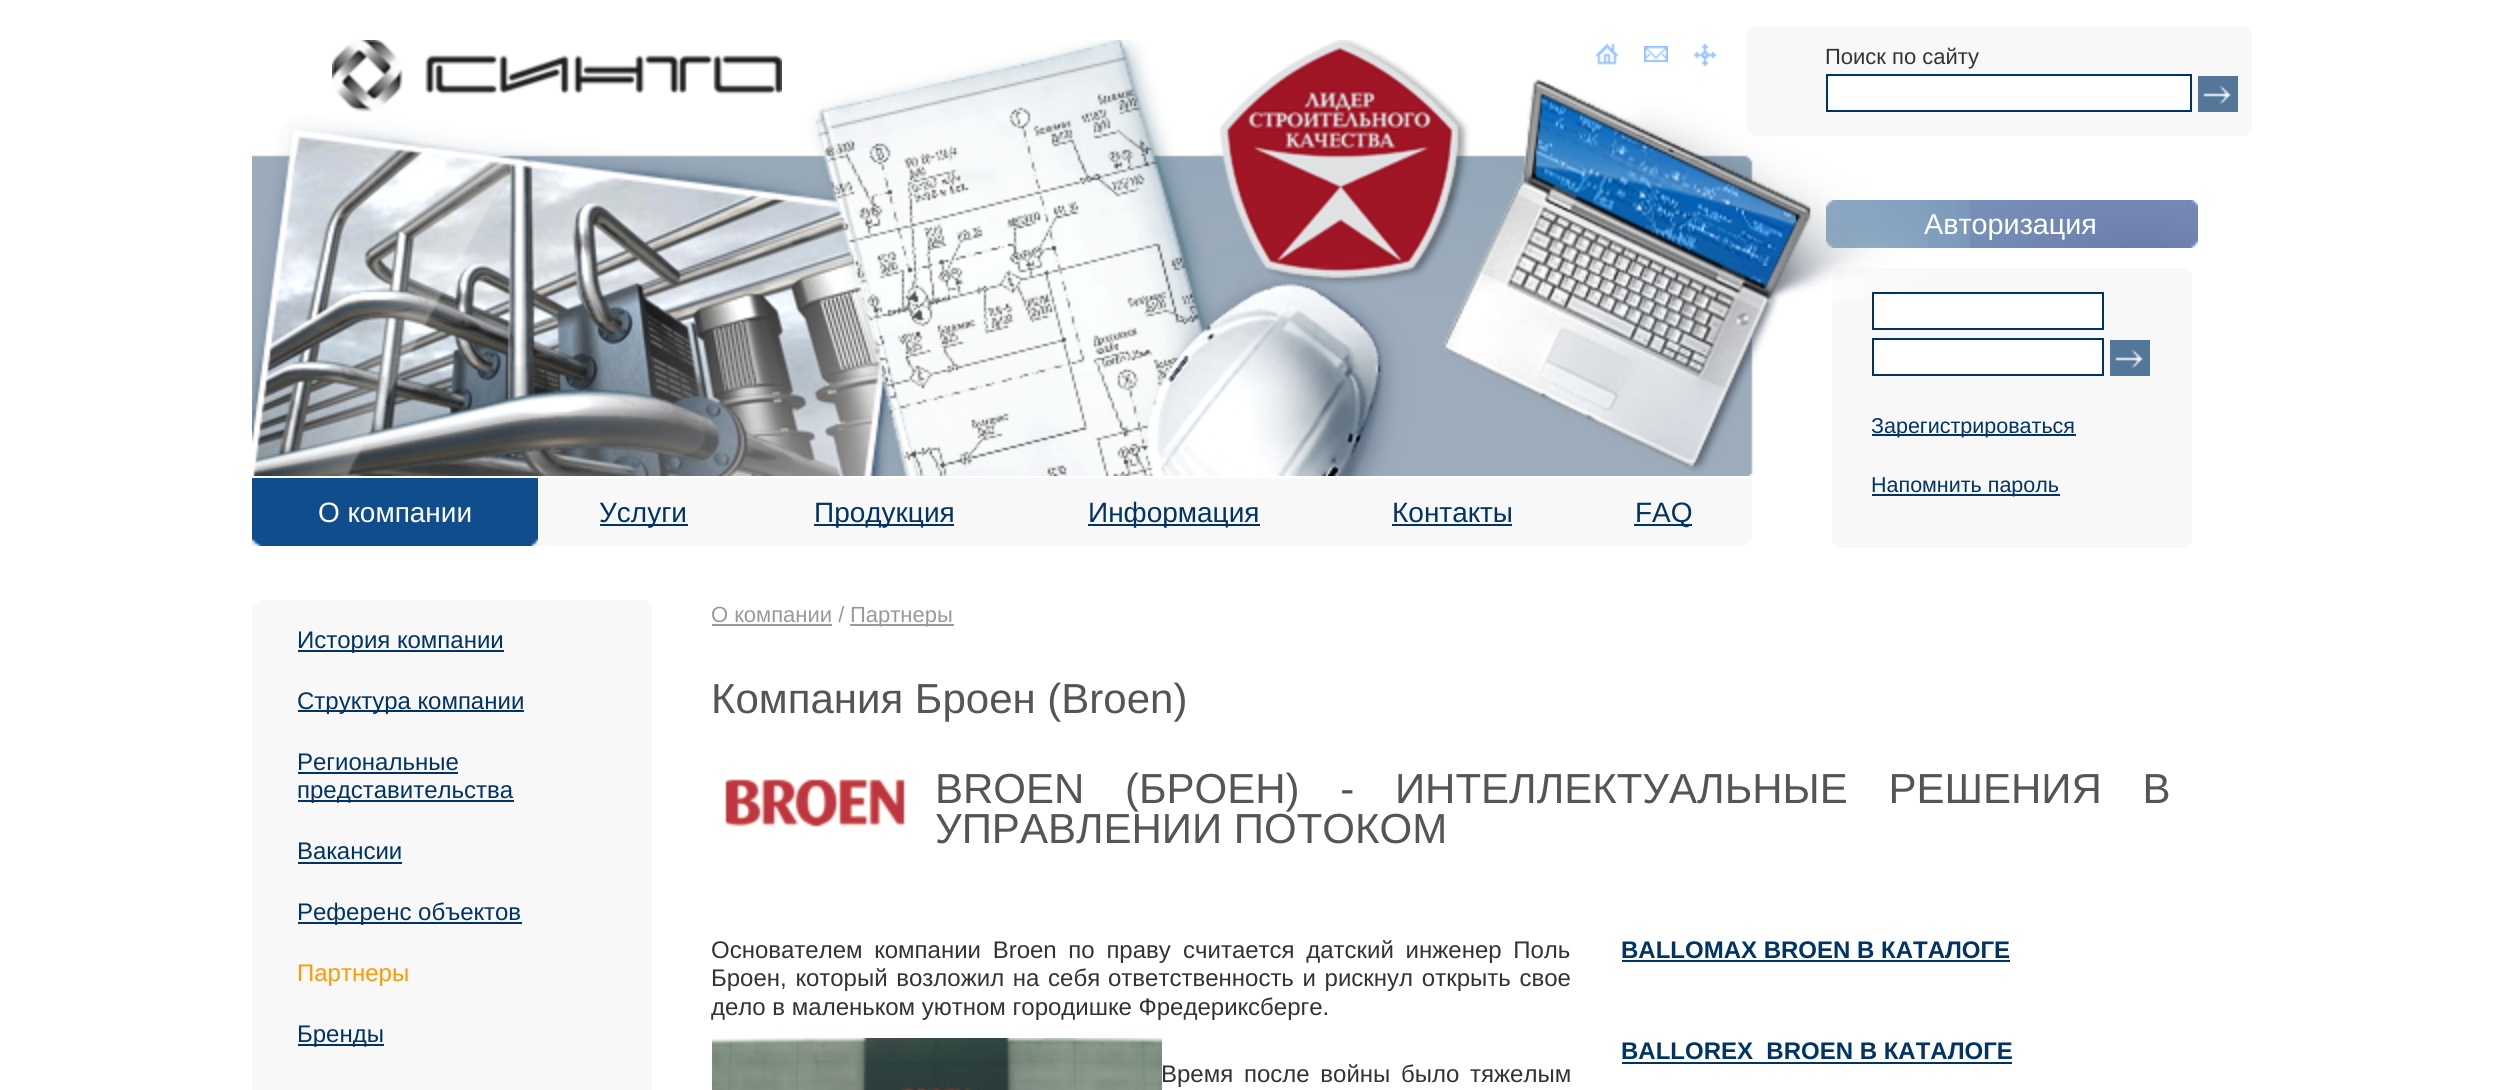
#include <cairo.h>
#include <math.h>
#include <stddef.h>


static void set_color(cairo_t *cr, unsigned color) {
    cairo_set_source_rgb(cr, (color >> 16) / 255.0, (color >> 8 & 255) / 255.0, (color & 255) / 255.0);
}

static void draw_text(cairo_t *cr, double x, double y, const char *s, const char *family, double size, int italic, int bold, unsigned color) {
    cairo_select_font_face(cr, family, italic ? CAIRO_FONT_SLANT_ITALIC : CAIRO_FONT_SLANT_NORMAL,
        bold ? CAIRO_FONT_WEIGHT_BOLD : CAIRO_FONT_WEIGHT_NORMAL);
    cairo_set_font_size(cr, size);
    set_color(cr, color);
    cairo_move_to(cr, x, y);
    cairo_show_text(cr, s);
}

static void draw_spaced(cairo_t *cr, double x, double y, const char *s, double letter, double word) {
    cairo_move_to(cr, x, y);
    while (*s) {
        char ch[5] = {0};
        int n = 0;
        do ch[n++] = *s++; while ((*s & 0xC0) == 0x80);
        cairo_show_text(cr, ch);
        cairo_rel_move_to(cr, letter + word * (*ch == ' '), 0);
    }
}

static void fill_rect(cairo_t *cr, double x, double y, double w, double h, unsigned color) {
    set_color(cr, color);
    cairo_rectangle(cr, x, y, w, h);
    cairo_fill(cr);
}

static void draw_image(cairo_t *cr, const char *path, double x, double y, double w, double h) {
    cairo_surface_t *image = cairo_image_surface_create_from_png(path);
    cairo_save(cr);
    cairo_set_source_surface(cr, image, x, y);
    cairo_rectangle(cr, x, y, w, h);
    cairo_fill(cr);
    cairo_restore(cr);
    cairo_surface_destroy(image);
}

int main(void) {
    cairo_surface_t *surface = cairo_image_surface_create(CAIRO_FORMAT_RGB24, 2501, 1090);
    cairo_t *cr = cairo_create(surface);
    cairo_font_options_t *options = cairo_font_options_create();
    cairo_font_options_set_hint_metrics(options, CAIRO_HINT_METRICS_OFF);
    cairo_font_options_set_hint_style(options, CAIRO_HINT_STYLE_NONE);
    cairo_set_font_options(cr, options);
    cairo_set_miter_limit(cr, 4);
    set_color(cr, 0xFFFFFF);
    cairo_paint(cr);
    draw_image(cr, "assets/img13.png", 1826, 200, 372, 48);
    draw_text(cr, 1924, 234, "Авторизация", "Liberation Sans", 28.75, 0, 0, 0xFFFFFF);
    fill_rect(cr, 1832, 268, 360, 280, 0xF8F8F8);
    draw_image(cr, "assets/img6.png", 1832, 268, 8, 6);
    draw_image(cr, "assets/img4.png", 252, 40, 1676, 436);
    draw_image(cr, "assets/img1.png", 1595, 43, 24, 22);
    draw_image(cr, "assets/img2.png", 1644, 46, 24, 16);
    draw_image(cr, "assets/img3.png", 1693, 43, 24, 24);
    draw_image(cr, "assets/img5.png", 332, 40, 450, 72);
    fill_rect(cr, 1746, 26, 506, 110, 0xF8F8F8);
    draw_image(cr, "assets/img6.png", 1746, 26, 8, 6);
    draw_image(cr, "assets/img7.png", 2246, 26, 6, 6);
    draw_image(cr, "assets/img8.png", 1746, 130, 7, 6);
    draw_image(cr, "assets/img9.png", 2246, 130, 6, 6);
    draw_text(cr, 1825, 64, "Поиск по сайту", "Liberation Sans", 22, 0, 0, 0x333333);
    set_color(cr, 0xFFFFFF);
    cairo_rectangle(cr, 1827, 75, 364, 36);
    cairo_fill_preserve(cr);
    set_color(cr, 0x003366);
    cairo_stroke(cr);
    draw_image(cr, "assets/img10.png", 2198, 76, 40, 36);
    fill_rect(cr, 538, 478, 1214, 68, 0xF8F8F8);
    draw_image(cr, "assets/img9.png", 1746, 540, 6, 6);
    fill_rect(cr, 252, 478, 286, 68, 0x104D8D);
    draw_image(cr, "assets/img11.png", 252, 538, 10, 8);
    draw_image(cr, "assets/img12.png", 530, 538, 8, 8);
    draw_text(cr, 318, 522, "О компании", "Liberation Sans", 28, 0, 0, 0xFFFFFF);
    fill_rect(cr, 600, 524, 88, 2, 0x003366);
    draw_text(cr, 599, 522, "Услуги", "Liberation Sans", 28, 0, 0, 0x003366);
    fill_rect(cr, 814, 524, 140, 2, 0x003366);
    draw_text(cr, 814, 522, "Продукция", "Liberation Sans", 28, 0, 0, 0x003366);
    fill_rect(cr, 1088, 524, 172, 2, 0x003366);
    draw_text(cr, 1088, 522, "Информация", "Liberation Sans", 28, 0, 0, 0x003366);
    draw_text(cr, 1392, 522, "Контакты", "Liberation Sans", 28, 0, 0, 0x003366);
    fill_rect(cr, 1392, 524, 120, 2, 0x003366);
    fill_rect(cr, 1634, 524, 58, 2, 0x003366);
    draw_text(cr, 1635, 522, "FAQ", "Liberation Sans", 28, 0, 0, 0x003366);
    draw_image(cr, "assets/img7.png", 2186, 268, 6, 6);
    draw_image(cr, "assets/img8.png", 1832, 542, 7, 6);
    draw_image(cr, "assets/img9.png", 2186, 542, 6, 6);
    set_color(cr, 0xFFFFFF);
    cairo_rectangle(cr, 1873, 293, 230, 36);
    cairo_fill_preserve(cr);
    set_color(cr, 0x003366);
    cairo_stroke(cr);
    set_color(cr, 0xFFFFFF);
    cairo_rectangle(cr, 1873, 339, 230, 36);
    cairo_fill_preserve(cr);
    set_color(cr, 0x003366);
    cairo_stroke(cr);
    draw_image(cr, "assets/img10.png", 2110, 340, 40, 36);
    fill_rect(cr, 1872, 434, 204, 2, 0x003366);
    draw_text(cr, 1871, 433, "Зарегистрироваться", "Liberation Sans", 21.5, 0, 0, 0x003366);
    fill_rect(cr, 1872, 494, 188, 2, 0x003366);
    draw_text(cr, 1871, 492, "Напомнить пароль", "Liberation Sans", 21.5, 0, 0, 0x003366);
    fill_rect(cr, 252, 600, 400, 490, 0xF8F8F8);
    draw_image(cr, "assets/img14.png", 252, 600, 8, 6);
    draw_image(cr, "assets/img7.png", 646, 600, 6, 6);
    fill_rect(cr, 298, 650, 206, 2, 0x003366);
    draw_text(cr, 297, 648, "История компании", "Liberation Sans", 24, 0, 0, 0x003366);
    fill_rect(cr, 298, 710, 226, 2, 0x003366);
    draw_text(cr, 297, 709, "Структура компании", "Liberation Sans", 24, 0, 0, 0x003366);
    draw_text(cr, 297, 770, "Региональные", "Liberation Sans", 24, 0, 0, 0x003366);
    fill_rect(cr, 298, 772, 160, 2, 0x003366);
    fill_rect(cr, 298, 800, 216, 2, 0x003366);
    draw_text(cr, 297, 798, "представительства", "Liberation Sans", 24, 0, 0, 0x003366);
    draw_text(cr, 297, 859, "Вакансии", "Liberation Sans", 24, 0, 0, 0x003366);
    fill_rect(cr, 298, 862, 104, 2, 0x003366);
    fill_rect(cr, 298, 922, 224, 2, 0x003366);
    draw_text(cr, 297, 920, "Референс объектов", "Liberation Sans", 24, 0, 0, 0x003366);
    draw_text(cr, 297, 981, "Партнеры", "Liberation Sans", 24, 0, 0, 0xFF9900);
    fill_rect(cr, 298, 1044, 86, 2, 0x003366);
    draw_text(cr, 297, 1042, "Бренды", "Liberation Sans", 24, 0, 0, 0x003366);
    draw_text(cr, 711, 622, "О компании /", "Liberation Sans", 22, 0, 0, 0x999999);
    fill_rect(cr, 712, 624, 120, 2, 0x999999);
    fill_rect(cr, 850, 624, 104, 2, 0x999999);
    draw_text(cr, 850, 622, "Партнеры", "Liberation Sans", 22, 0, 0, 0x999999);
    draw_text(cr, 711, 713, "Компания Броен (Broen)", "Liberation Sans", 42, 0, 0, 0x555555);
    draw_image(cr, "assets/img15.png", 725, 779, 180, 48);
    draw_spaced(cr, 935, 803, "BROEN (БРОЕН) - ИНТЕЛЛЕКТУАЛЬНЫЕ РЕШЕНИЯ В", 0, 29);
    draw_text(cr, 935, 843, "УПРАВЛЕНИИ ПОТОКОМ", "Liberation Sans", 42, 0, 0, 0x555555);
    cairo_set_font_size(cr, 24);
    set_color(cr, 0x333333);
    draw_spaced(cr, 711, 958, "Основателем компании Broen по праву", 0, 5);
    draw_spaced(cr, 1183, 958, "считается датский инженер Поль", 0, 5);
    draw_spaced(cr, 711, 986, "Броен, который возложил на себя", 0, 2);
    draw_spaced(cr, 1108, 986, "ответственность и рискнул открыть свое", 0, 2);
    draw_text(cr, 711, 1015, "дело в маленьком уютном городишке Фредериксберге.", "Liberation Sans", 24, 0, 0, 0x333333);
    draw_image(cr, "assets/img16.png", 712, 1038, 450, 52);
    draw_text(cr, 1161, 1082, "Время", "Liberation Sans", 24, 0, 0, 0x333333);
    draw_spaced(cr, 1244, 1082, "после войны было тяжелым", 0, 4);
    draw_text(cr, 1621, 958, "BALLOMAX BROEN В КАТАЛОГЕ", "Liberation Sans", 24, 0, 1, 0x003366);
    fill_rect(cr, 1622, 960, 388, 2, 0x003366);
    draw_text(cr, 1621, 1059, "BALLOREX  BROEN В КАТАЛОГЕ", "Liberation Sans", 24, 0, 1, 0x003366);
    fill_rect(cr, 1622, 1062, 390, 2, 0x003366);
    cairo_surface_write_to_png(surface, "output.png");
    cairo_font_options_destroy(options);
    cairo_destroy(cr);
    cairo_surface_destroy(surface);
    return 0;
}
